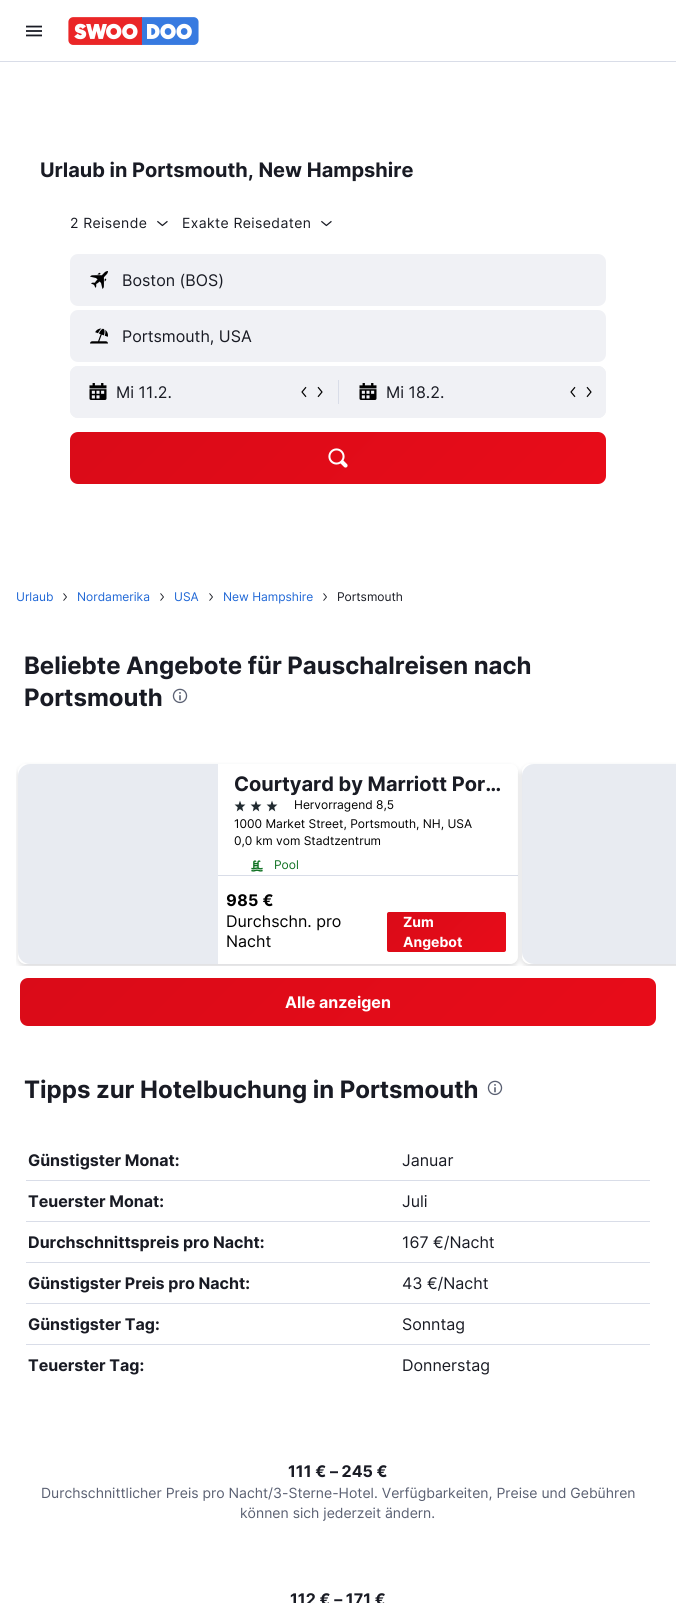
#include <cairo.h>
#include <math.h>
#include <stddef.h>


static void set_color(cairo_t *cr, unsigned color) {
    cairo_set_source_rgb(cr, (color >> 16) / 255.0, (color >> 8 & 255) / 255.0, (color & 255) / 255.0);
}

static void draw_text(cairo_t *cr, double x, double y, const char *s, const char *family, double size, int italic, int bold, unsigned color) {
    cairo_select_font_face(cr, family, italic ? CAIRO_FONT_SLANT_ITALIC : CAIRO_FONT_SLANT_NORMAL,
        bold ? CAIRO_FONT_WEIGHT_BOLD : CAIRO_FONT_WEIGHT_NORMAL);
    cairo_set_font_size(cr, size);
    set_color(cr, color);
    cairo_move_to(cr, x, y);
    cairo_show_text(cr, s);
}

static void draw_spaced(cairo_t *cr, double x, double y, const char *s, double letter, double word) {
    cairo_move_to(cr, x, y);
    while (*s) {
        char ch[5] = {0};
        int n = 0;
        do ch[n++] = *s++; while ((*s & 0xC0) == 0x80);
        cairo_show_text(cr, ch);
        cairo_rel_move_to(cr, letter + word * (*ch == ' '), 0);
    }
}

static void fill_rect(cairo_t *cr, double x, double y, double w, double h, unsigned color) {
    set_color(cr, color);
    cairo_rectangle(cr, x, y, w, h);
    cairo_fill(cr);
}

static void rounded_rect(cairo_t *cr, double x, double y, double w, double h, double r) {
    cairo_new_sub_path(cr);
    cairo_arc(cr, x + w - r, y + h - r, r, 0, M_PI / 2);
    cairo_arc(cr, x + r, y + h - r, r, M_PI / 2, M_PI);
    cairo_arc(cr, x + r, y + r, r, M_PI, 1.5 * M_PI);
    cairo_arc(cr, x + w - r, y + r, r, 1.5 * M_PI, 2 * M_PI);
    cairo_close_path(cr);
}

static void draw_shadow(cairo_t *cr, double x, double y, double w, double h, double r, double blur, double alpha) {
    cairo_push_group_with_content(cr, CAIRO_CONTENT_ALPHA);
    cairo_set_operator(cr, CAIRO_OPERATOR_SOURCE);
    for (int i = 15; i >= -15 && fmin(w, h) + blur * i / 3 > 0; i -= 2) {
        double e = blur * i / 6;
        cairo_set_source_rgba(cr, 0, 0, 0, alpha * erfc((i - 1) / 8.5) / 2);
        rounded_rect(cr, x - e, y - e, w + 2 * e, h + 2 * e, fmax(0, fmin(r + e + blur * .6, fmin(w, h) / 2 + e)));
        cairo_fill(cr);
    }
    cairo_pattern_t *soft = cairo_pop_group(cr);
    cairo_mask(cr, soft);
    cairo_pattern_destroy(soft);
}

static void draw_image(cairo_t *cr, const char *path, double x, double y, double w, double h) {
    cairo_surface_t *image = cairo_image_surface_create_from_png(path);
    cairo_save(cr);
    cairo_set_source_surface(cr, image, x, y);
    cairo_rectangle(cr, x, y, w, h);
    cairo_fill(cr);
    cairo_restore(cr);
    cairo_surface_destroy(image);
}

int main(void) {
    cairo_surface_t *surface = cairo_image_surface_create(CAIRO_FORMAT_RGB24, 676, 1603);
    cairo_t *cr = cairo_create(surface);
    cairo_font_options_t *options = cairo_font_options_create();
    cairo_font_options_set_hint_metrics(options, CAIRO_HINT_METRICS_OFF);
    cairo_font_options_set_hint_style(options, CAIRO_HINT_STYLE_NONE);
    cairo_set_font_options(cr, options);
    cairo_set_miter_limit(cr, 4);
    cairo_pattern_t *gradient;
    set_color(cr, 0xFFFFFF);
    cairo_paint(cr);
    fill_rect(cr, 0, 61, 676, 1, 0xD9DDE8);
    draw_image(cr, "assets/img1.png", 26, 25, 16, 12);
    draw_image(cr, "assets/img2.png", 68, 17, 131, 28);
    draw_text(cr, 40, 177, "Urlaub in Portsmouth, New Hampshire", "Inter", 20, 0, 1, 0x191B24);
    cairo_select_font_face(cr, "Inter", CAIRO_FONT_SLANT_NORMAL, CAIRO_FONT_WEIGHT_NORMAL);
    cairo_set_font_size(cr, 14);
    draw_spaced(cr, 70, 228, "2 Reisende", 0.4, 0);
    draw_image(cr, "assets/img3.png", 157, 220, 11, 7);
    draw_spaced(cr, 182, 228, "Exakte Reisedaten", 0.4, 0);
    draw_image(cr, "assets/img3.png", 321, 220, 11, 7);
    set_color(cr, 0xF0F1F5);
    rounded_rect(cr, 70, 254, 536, 52, 8);
    cairo_fill(cr);
    draw_image(cr, "assets/img4.png", 90, 271, 18, 18);
    draw_text(cr, 122, 286, "Boston (BOS)", "Inter", 16, 0, 0, 0x191B24);
    set_color(cr, 0xF0F1F5);
    rounded_rect(cr, 70, 310, 536, 52, 8);
    cairo_fill(cr);
    draw_image(cr, "assets/img5.png", 90, 328, 18, 16);
    draw_text(cr, 122, 342, "Portsmouth, USA", "Inter", 16, 0, 0, 0x191B24);
    set_color(cr, 0xF0F1F5);
    rounded_rect(cr, 70, 366, 536, 52, 8);
    cairo_fill(cr);
    rounded_rect(cr, 70, 366, 267, 52, 8);
    cairo_fill(cr);
    draw_image(cr, "assets/img6.png", 89, 383, 18, 17);
    draw_text(cr, 116, 398, "Mi 11.2.", "Inter", 16, 0, 0, 0x191B24);
    draw_image(cr, "assets/img7.png", 301, 386, 6, 12);
    draw_image(cr, "assets/img8.png", 317, 386, 6, 12);
    fill_rect(cr, 338, 380, 1, 24, 0xD9DDE8);
    set_color(cr, 0xF0F1F5);
    rounded_rect(cr, 340, 366, 266, 52, 8);
    cairo_fill(cr);
    draw_image(cr, "assets/img6.png", 359, 383, 18, 17);
    draw_text(cr, 386, 398, "Mi 18.2.", "Inter", 16, 0, 0, 0x191B24);
    draw_image(cr, "assets/img7.png", 570, 386, 6, 12);
    draw_image(cr, "assets/img8.png", 586, 386, 6, 12);
    gradient = cairo_pattern_create_linear(191, 311, 485, 605);
    cairo_pattern_add_color_stop_rgba(gradient, 0, 0.855, 0.043, 0.094, 1);
    cairo_pattern_add_color_stop_rgba(gradient, 1, 0.91, 0.047, 0.098, 1);
    cairo_set_source(cr, gradient);
    cairo_pattern_destroy(gradient);
    rounded_rect(cr, 70, 432, 536, 52, 8);
    cairo_fill(cr);
    draw_image(cr, "assets/img9.png", 328, 448, 20, 20);
    draw_text(cr, 16, 601, "Urlaub", "Inter", 12, 0, 0, 0x1F67D6);
    draw_image(cr, "assets/img10.png", 63, 593, 4, 8);
    draw_text(cr, 77, 601, "Nordamerika", "Inter", 12, 0, 0, 0x1F67D6);
    draw_image(cr, "assets/img10.png", 160, 593, 4, 8);
    draw_text(cr, 174, 601, "USA", "Inter", 12, 0, 0, 0x1F67D6);
    draw_image(cr, "assets/img10.png", 209, 593, 4, 8);
    draw_text(cr, 223, 601, "New Hampshire", "Inter", 12, 0, 0, 0x1F67D6);
    draw_image(cr, "assets/img10.png", 323, 593, 4, 8);
    draw_text(cr, 337, 601, "Portsmouth", "Inter", 12, 0, 0, 0x191B24);
    draw_text(cr, 24, 674, "Beliebte Angebote für Pauschalreisen nach", "Inter", 24, 0, 1, 0x191B24);
    draw_text(cr, 24, 706, "Portsmouth", "Inter", 24, 0, 1, 0x191B24);
    draw_image(cr, "assets/img11.png", 172, 688, 16, 16);
    cairo_save(cr);
    cairo_rectangle(cr, 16, 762, 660, 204);
    cairo_clip(cr);
    cairo_set_fill_rule(cr, CAIRO_FILL_RULE_EVEN_ODD);
    cairo_new_path(cr);
    cairo_move_to(cr, 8, 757);
    cairo_line_to(cr, 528, 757);
    cairo_line_to(cr, 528, 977);
    cairo_line_to(cr, 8, 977);
    cairo_close_path(cr);
    cairo_move_to(cr, 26, 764);
    cairo_line_to(cr, 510, 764);
    cairo_curve_to(cr, 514.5, 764, 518, 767.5, 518, 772);
    cairo_line_to(cr, 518, 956);
    cairo_curve_to(cr, 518, 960.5, 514.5, 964, 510, 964);
    cairo_line_to(cr, 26, 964);
    cairo_curve_to(cr, 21.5, 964, 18, 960.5, 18, 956);
    cairo_line_to(cr, 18, 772);
    cairo_curve_to(cr, 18, 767.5, 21.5, 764, 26, 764);
    cairo_close_path(cr);
    cairo_clip(cr);
    set_color(cr, 0x191B24);
    draw_shadow(cr, 18, 767, 500, 200, 8, 3, 0.16);
    cairo_restore(cr);
    set_color(cr, 0xE8EBF1);
    cairo_new_path(cr);
    cairo_move_to(cr, 30, 764);
    cairo_line_to(cr, 218, 764);
    cairo_line_to(cr, 218, 964);
    cairo_line_to(cr, 30, 964);
    cairo_curve_to(cr, 23.5, 964, 18, 958.5, 18, 952);
    cairo_line_to(cr, 18, 776);
    cairo_curve_to(cr, 18, 769.5, 23.5, 764, 30, 764);
    cairo_close_path(cr);
    cairo_fill(cr);
    draw_text(cr, 234, 791, "Courtyard by Marriott Por…", "Inter", 20, 0, 1, 0x191B24);
    draw_image(cr, "assets/img12.png", 234, 800, 12, 12);
    draw_image(cr, "assets/img12.png", 250, 800, 12, 12);
    draw_image(cr, "assets/img12.png", 266, 800, 12, 12);
    draw_text(cr, 294, 809, "Hervorragend 8,5", "Inter", 12, 0, 0, 0x000000);
    draw_text(cr, 234, 828, "1000 Market Street, Portsmouth, NH, USA", "Inter", 12, 0, 0, 0x000000);
    draw_text(cr, 234, 845, "0,0 km vom Stadtzentrum", "Inter", 12, 0, 0, 0x000000);
    draw_image(cr, "assets/img13.png", 251, 860, 12, 12);
    draw_text(cr, 274, 869, "Pool", "Inter", 12, 0, 0, 0x0F7122);
    fill_rect(cr, 218, 875, 300, 1, 0xD9DDE8);
    draw_text(cr, 226, 906, "985 €", "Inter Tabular", 16, 0, 1, 0x000000);
    draw_text(cr, 226, 927, "Durchschn. pro", "Inter", 16, 0, 0, 0x000000);
    draw_text(cr, 226, 947, "Nacht", "Inter", 16, 0, 0, 0x000000);
    gradient = cairo_pattern_create_linear(407, 892, 486, 972);
    cairo_pattern_add_color_stop_rgba(gradient, 0, 0.855, 0.043, 0.094, 1);
    cairo_pattern_add_color_stop_rgba(gradient, 1, 0.91, 0.047, 0.098, 1);
    cairo_set_source(cr, gradient);
    cairo_pattern_destroy(gradient);
    rounded_rect(cr, 387, 912, 119, 40, 2);
    cairo_fill(cr);
    draw_text(cr, 403, 927, "Zum", "Inter", 14, 0, 1, 0xFFFFFF);
    draw_text(cr, 403, 947, "Angebot", "Inter", 14, 0, 1, 0xFFFFFF);
    cairo_save(cr);
    cairo_rectangle(cr, 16, 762, 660, 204);
    cairo_clip(cr);
    cairo_set_fill_rule(cr, CAIRO_FILL_RULE_EVEN_ODD);
    cairo_new_path(cr);
    cairo_move_to(cr, 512, 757);
    cairo_line_to(cr, 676, 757);
    cairo_line_to(cr, 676, 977);
    cairo_line_to(cr, 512, 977);
    cairo_close_path(cr);
    cairo_move_to(cr, 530, 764);
    cairo_line_to(cr, 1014, 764);
    cairo_curve_to(cr, 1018.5, 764, 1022, 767.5, 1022, 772);
    cairo_line_to(cr, 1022, 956);
    cairo_curve_to(cr, 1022, 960.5, 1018.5, 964, 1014, 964);
    cairo_line_to(cr, 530, 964);
    cairo_curve_to(cr, 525.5, 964, 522, 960.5, 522, 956);
    cairo_line_to(cr, 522, 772);
    cairo_curve_to(cr, 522, 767.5, 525.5, 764, 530, 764);
    cairo_close_path(cr);
    cairo_clip(cr);
    set_color(cr, 0x191B24);
    draw_shadow(cr, 522, 767, 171, 200, 8, 3, 0.16);
    cairo_restore(cr);
    cairo_set_source_rgba(cr, 0.851, 0.867, 0.91, 0.6);
    cairo_new_path(cr);
    cairo_move_to(cr, 534, 764);
    cairo_line_to(cr, 676, 764);
    cairo_line_to(cr, 676, 964);
    cairo_line_to(cr, 534, 964);
    cairo_curve_to(cr, 527.5, 964, 522, 958.5, 522, 952);
    cairo_line_to(cr, 522, 776);
    cairo_curve_to(cr, 522, 769.5, 527.5, 764, 534, 764);
    cairo_close_path(cr);
    cairo_fill(cr);
    gradient = cairo_pattern_create_linear(167, 831, 509, 1173);
    cairo_pattern_add_color_stop_rgba(gradient, 0, 0.855, 0.043, 0.094, 1);
    cairo_pattern_add_color_stop_rgba(gradient, 1, 0.91, 0.047, 0.098, 1);
    cairo_set_source(cr, gradient);
    cairo_pattern_destroy(gradient);
    rounded_rect(cr, 20, 978, 636, 48, 8);
    cairo_fill(cr);
    draw_text(cr, 285, 1008, "Alle anzeigen", "Inter", 16, 0, 1, 0xFFFFFF);
    draw_text(cr, 24, 1098, "Tipps zur Hotelbuchung in Portsmouth", "Inter", 24, 0, 1, 0x191B24);
    draw_image(cr, "assets/img11.png", 487, 1080, 16, 16);
    fill_rect(cr, 26, 1180, 624, 1, 0xD9DDE8);
    draw_text(cr, 28, 1166, "Günstigster Monat:", "Inter", 16, 0, 1, 0x191B24);
    draw_text(cr, 402, 1166, "Januar", "Inter", 16, 0, 0, 0x191B24);
    fill_rect(cr, 26, 1221, 624, 1, 0xD9DDE8);
    draw_text(cr, 28, 1207, "Teuerster Monat:", "Inter", 16, 0, 1, 0x191B24);
    draw_text(cr, 402, 1207, "Juli", "Inter", 16, 0, 0, 0x191B24);
    fill_rect(cr, 26, 1262, 624, 1, 0xD9DDE8);
    draw_text(cr, 28, 1248, "Durchschnittspreis pro Nacht:", "Inter", 16, 0, 1, 0x191B24);
    draw_text(cr, 402, 1248, "167 €/Nacht", "Inter", 16, 0, 0, 0x191B24);
    fill_rect(cr, 26, 1303, 624, 1, 0xD9DDE8);
    draw_text(cr, 28, 1289, "Günstigster Preis pro Nacht:", "Inter", 16, 0, 1, 0x191B24);
    draw_text(cr, 402, 1289, "43 €/Nacht", "Inter", 16, 0, 0, 0x191B24);
    fill_rect(cr, 26, 1344, 624, 1, 0xD9DDE8);
    draw_text(cr, 28, 1330, "Günstigster Tag:", "Inter", 16, 0, 1, 0x191B24);
    draw_text(cr, 402, 1330, "Sonntag", "Inter", 16, 0, 0, 0x191B24);
    draw_text(cr, 28, 1371, "Teuerster Tag:", "Inter", 16, 0, 1, 0x191B24);
    draw_text(cr, 402, 1371, "Donnerstag", "Inter", 16, 0, 0, 0x191B24);
    draw_text(cr, 288, 1477, "111 € – 245 €", "Inter", 16, 0, 1, 0x191B24);
    draw_text(cr, 41, 1498, "Durchschnittlicher Preis pro Nacht/3-Sterne-Hotel. Verfügbarkeiten, Preise und Gebühren", "Inter", 14, 0, 0, 0x5A6072);
    draw_text(cr, 240, 1518, "können sich jederzeit ändern.", "Inter", 14, 0, 0, 0x5A6072);
    draw_text(cr, 290, 1605, "112 € – 171 €", "Inter", 16, 0, 1, 0x191B24);
    cairo_surface_write_to_png(surface, "output.png");
    cairo_font_options_destroy(options);
    cairo_destroy(cr);
    cairo_surface_destroy(surface);
    return 0;
}
